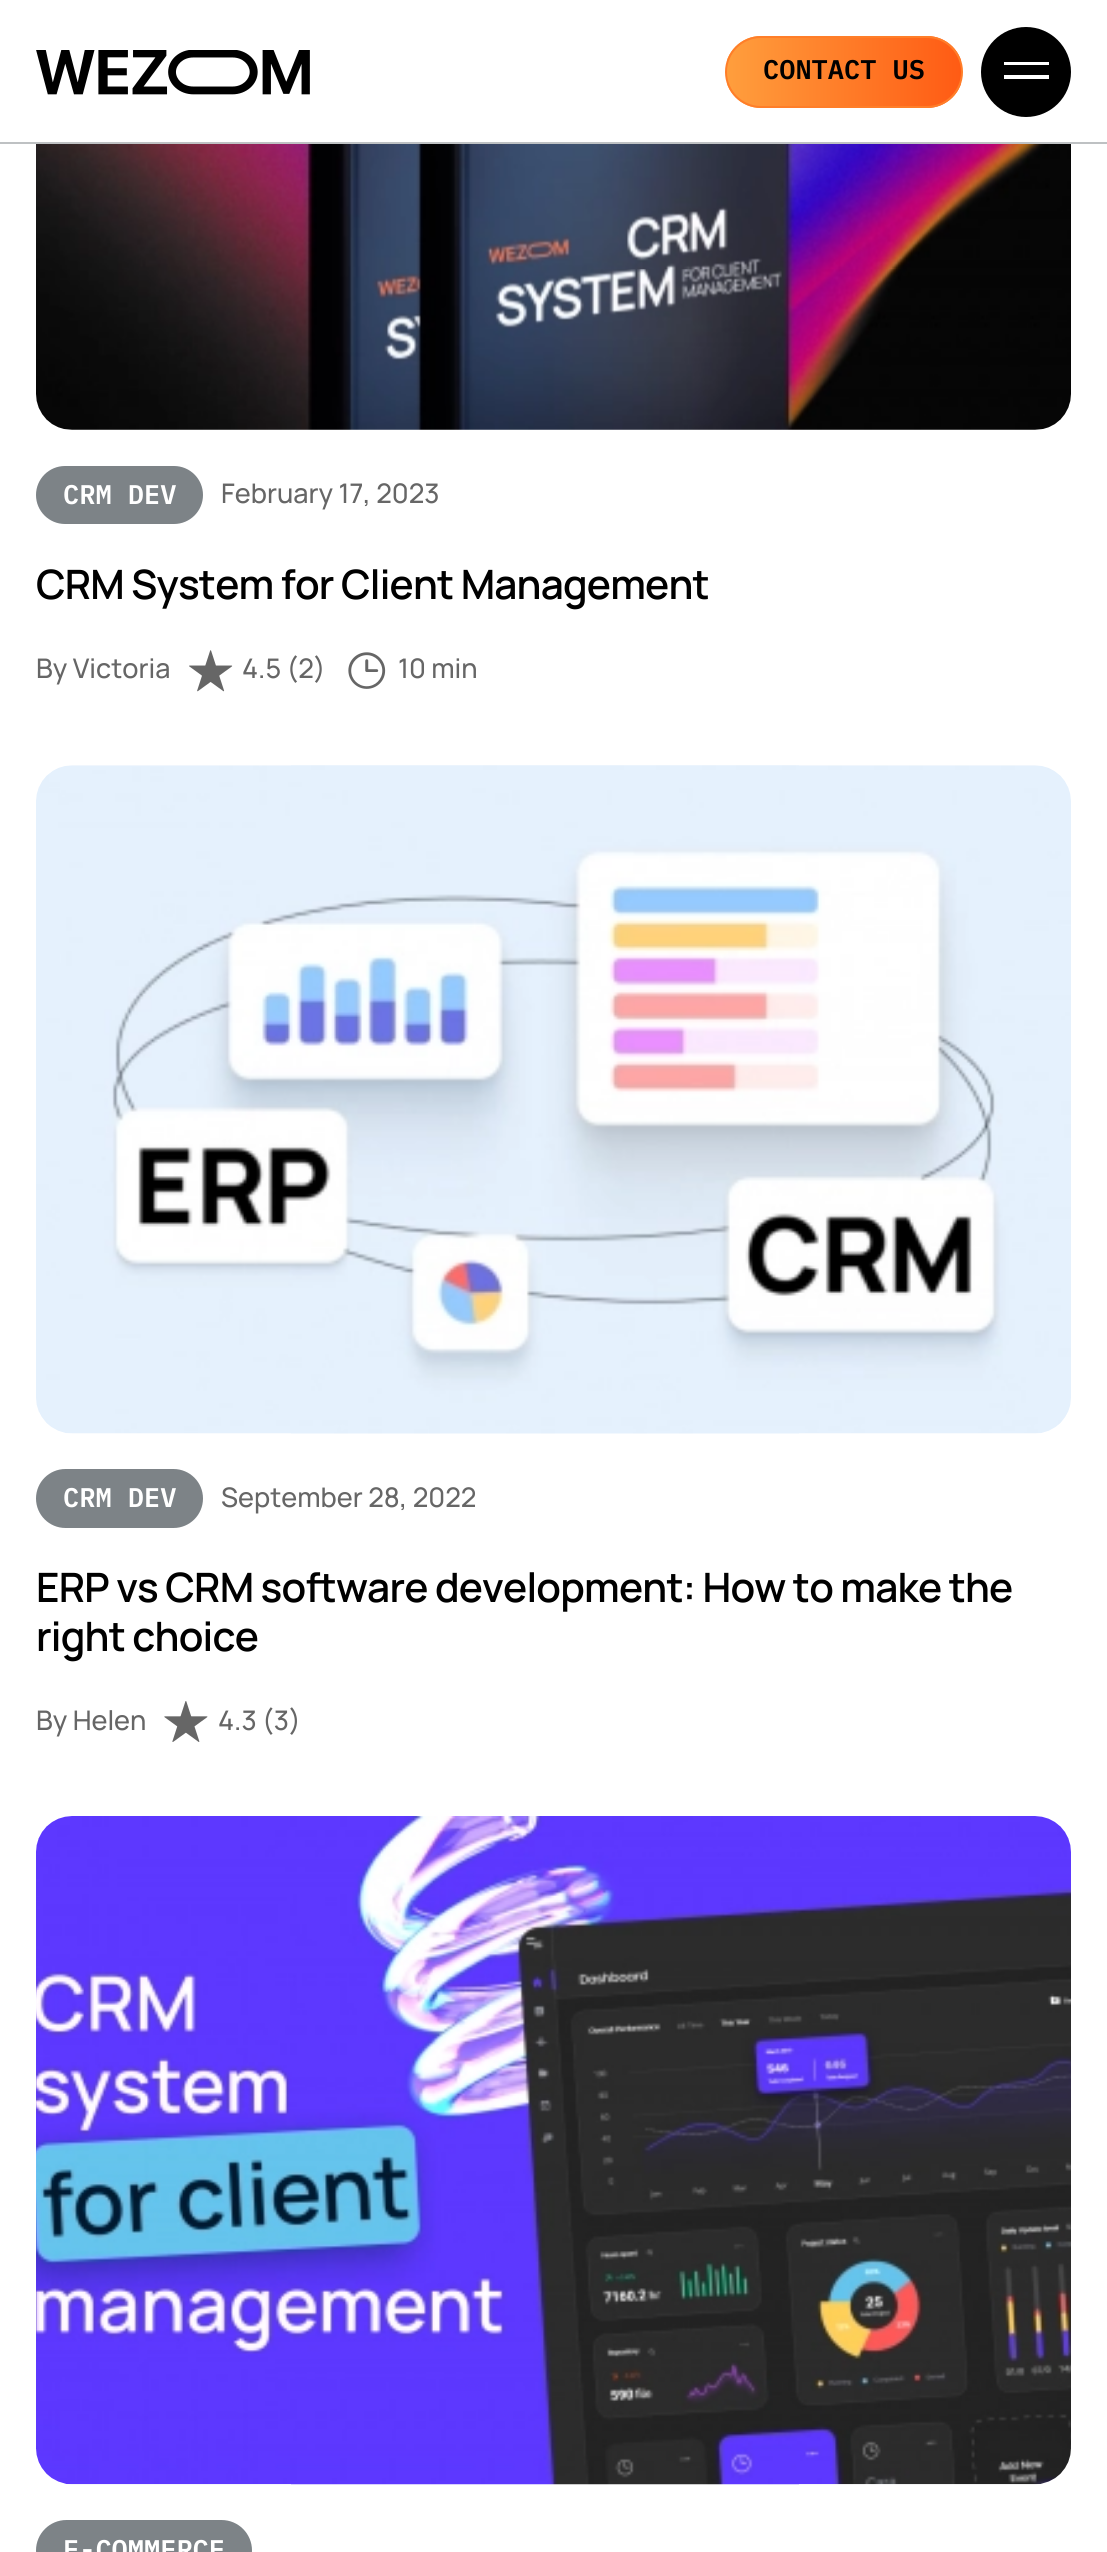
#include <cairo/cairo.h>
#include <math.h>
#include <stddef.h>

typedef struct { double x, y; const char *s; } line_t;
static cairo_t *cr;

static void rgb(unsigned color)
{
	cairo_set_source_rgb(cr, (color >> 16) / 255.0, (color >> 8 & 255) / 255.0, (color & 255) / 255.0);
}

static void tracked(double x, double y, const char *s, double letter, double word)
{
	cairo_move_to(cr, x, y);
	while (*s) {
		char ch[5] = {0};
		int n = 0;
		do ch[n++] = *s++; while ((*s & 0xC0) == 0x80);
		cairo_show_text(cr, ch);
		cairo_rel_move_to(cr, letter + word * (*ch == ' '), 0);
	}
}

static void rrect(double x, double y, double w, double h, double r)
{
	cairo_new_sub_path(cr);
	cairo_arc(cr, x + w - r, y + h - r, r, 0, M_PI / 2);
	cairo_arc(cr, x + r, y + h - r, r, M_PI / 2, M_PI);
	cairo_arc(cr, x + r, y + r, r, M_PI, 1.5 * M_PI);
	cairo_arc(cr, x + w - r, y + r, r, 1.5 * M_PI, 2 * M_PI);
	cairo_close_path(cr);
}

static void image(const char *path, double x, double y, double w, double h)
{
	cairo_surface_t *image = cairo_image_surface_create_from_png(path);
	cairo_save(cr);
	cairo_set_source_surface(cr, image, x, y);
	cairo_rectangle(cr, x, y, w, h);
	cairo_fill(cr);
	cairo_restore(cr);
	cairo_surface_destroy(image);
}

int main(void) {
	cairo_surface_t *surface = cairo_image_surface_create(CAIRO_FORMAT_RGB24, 1107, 2552);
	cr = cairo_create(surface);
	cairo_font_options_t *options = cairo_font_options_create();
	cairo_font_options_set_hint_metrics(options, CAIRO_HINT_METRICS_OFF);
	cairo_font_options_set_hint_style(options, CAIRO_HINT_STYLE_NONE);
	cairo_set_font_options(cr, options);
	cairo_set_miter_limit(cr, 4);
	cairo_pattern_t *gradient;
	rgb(0xffffff);
	cairo_paint(cr);
	rgb(0xbec1c3);
	cairo_rectangle(cr, 0, 142, 1107, 2);
	cairo_fill(cr);
	image("img/1.png", 36, 50, 274, 45);
	cairo_save(cr);
	rrect(725, 36, 238, 72, 36);
	cairo_clip(cr);
	gradient = cairo_pattern_create_linear(961, 72, 727, 72);
	cairo_pattern_add_color_stop_rgba(gradient, 0, 1, 0.357, 0.078, 1);
	cairo_pattern_add_color_stop_rgba(gradient, 1, 1, 0.62, 0.239, 1);
	cairo_set_source(cr, gradient);
	cairo_pattern_destroy(gradient);
	cairo_rectangle(cr, 727, 36, 234, 72);
	cairo_fill(cr);
	cairo_restore(cr);
	rrect(726, 37, 236, 70, 35);
	rgb(0xff7e29);
	cairo_stroke(cr);
	rgb(0x000000);
	cairo_arc(cr, 1026, 72, 45, 0, 2 * M_PI);
	cairo_fill(cr);
	rgb(0xffffff);
	cairo_rectangle(cr, 1004, 62, 45, 3);
	cairo_fill(cr);
	cairo_rectangle(cr, 1004, 75, 45, 4);
	cairo_fill(cr);
	image("img/2.png", 36, 144, 1035, 286);
	rgb(0x7d8387);
	rrect(36, 466, 167, 58, 29);
	cairo_fill(cr);
	image("img/3.png", 189, 650, 44, 42);
	image("img/4.png", 348, 652, 38, 37);
	image("img/5.png", 36, 765, 1035, 669);
	rrect(36, 1469, 167, 59, 29.5);
	cairo_fill(cr);
	image("img/6.png", 164, 1701, 44, 41);
	image("img/7.png", 36, 1816, 1035, 669);
	rrect(36, 2520, 216, 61, 30.5);
	cairo_fill(cr);
	cairo_select_font_face(cr, "IBM Plex Mono SemiBold", CAIRO_FONT_SLANT_NORMAL, CAIRO_FONT_WEIGHT_NORMAL);
	cairo_set_font_size(cr, 27);
	rgb(0x000000);
	cairo_move_to(cr, 763, 79);
	cairo_show_text(cr, "CONTACT US");
	rgb(0xffffff);
	cairo_move_to(cr, 63, 504);
	cairo_show_text(cr, "CRM DEV");
	cairo_select_font_face(cr, "Manrope Medium", CAIRO_FONT_SLANT_NORMAL, CAIRO_FONT_WEIGHT_NORMAL);
	rgb(0x666666);
	cairo_move_to(cr, 221, 503);
	cairo_show_text(cr, "February 17, 2023");
	cairo_select_font_face(cr, "Manrope SemiBold", CAIRO_FONT_SLANT_NORMAL, CAIRO_FONT_WEIGHT_NORMAL);
	cairo_set_font_size(cr, 40.5);
	rgb(0x000000);
	tracked(36, 599, "CRM System for Client Management", -0.8, 0);
	cairo_select_font_face(cr, "Manrope Medium", CAIRO_FONT_SLANT_NORMAL, CAIRO_FONT_WEIGHT_NORMAL);
	cairo_set_font_size(cr, 27);
	rgb(0x666666);
	{
		static const line_t items[] = {
			{36, 678, "By Victoria"},
			{242, 678, "4.5 (2)"},
			{398, 678, "10 min"},
		};
		for (size_t i = 0; i < sizeof items / sizeof *items; i++) {
			cairo_move_to(cr, items[i].x, items[i].y);
			cairo_show_text(cr, items[i].s);
		}
	}
	cairo_select_font_face(cr, "IBM Plex Mono SemiBold", CAIRO_FONT_SLANT_NORMAL, CAIRO_FONT_WEIGHT_NORMAL);
	rgb(0xffffff);
	cairo_move_to(cr, 63, 1507);
	cairo_show_text(cr, "CRM DEV");
	cairo_select_font_face(cr, "Manrope Medium", CAIRO_FONT_SLANT_NORMAL, CAIRO_FONT_WEIGHT_NORMAL);
	rgb(0x666666);
	cairo_move_to(cr, 221, 1507);
	cairo_show_text(cr, "September 28, 2022");
	cairo_select_font_face(cr, "Manrope SemiBold", CAIRO_FONT_SLANT_NORMAL, CAIRO_FONT_WEIGHT_NORMAL);
	cairo_set_font_size(cr, 40.5);
	rgb(0x000000);
	tracked(36, 1602, "ERP vs CRM software development: How to make the", -0.8, 0);
	tracked(36, 1651, "right choice", -0.8, 0);
	cairo_select_font_face(cr, "Manrope Medium", CAIRO_FONT_SLANT_NORMAL, CAIRO_FONT_WEIGHT_NORMAL);
	cairo_set_font_size(cr, 27);
	rgb(0x666666);
	cairo_move_to(cr, 36, 1730);
	cairo_show_text(cr, "By Helen");
	cairo_move_to(cr, 218, 1730);
	cairo_show_text(cr, "4.3 (3)");
	cairo_select_font_face(cr, "IBM Plex Mono SemiBold", CAIRO_FONT_SLANT_NORMAL, CAIRO_FONT_WEIGHT_NORMAL);
	rgb(0xffffff);
	cairo_move_to(cr, 63, 2559);
	cairo_show_text(cr, "E-COMMERCE");
	cairo_surface_write_to_png(surface, "page.png");
	cairo_font_options_destroy(options);
	cairo_destroy(cr);
	cairo_surface_destroy(surface);
	return 0;
}
